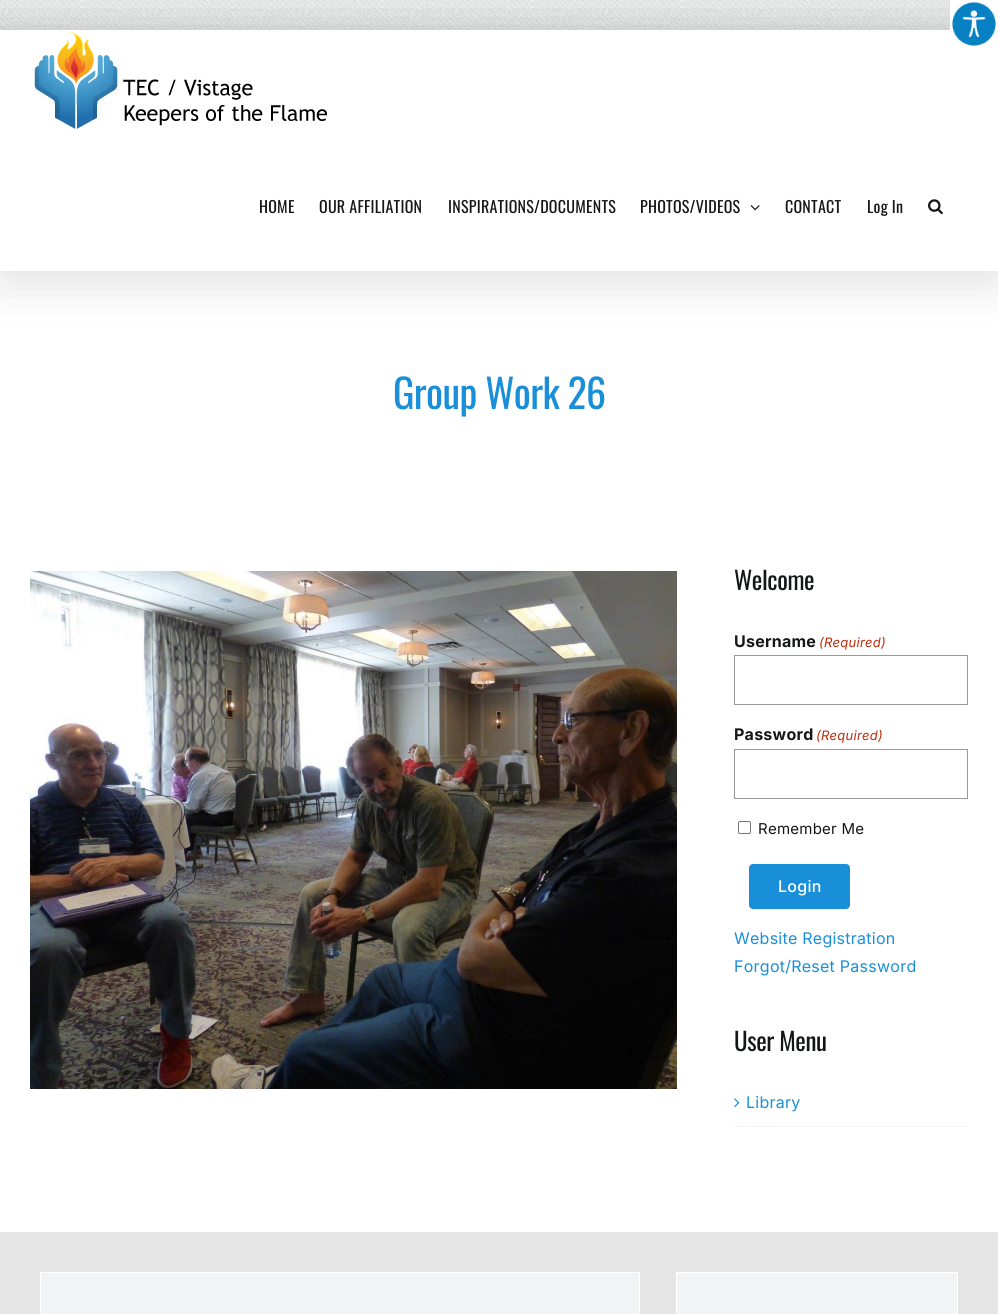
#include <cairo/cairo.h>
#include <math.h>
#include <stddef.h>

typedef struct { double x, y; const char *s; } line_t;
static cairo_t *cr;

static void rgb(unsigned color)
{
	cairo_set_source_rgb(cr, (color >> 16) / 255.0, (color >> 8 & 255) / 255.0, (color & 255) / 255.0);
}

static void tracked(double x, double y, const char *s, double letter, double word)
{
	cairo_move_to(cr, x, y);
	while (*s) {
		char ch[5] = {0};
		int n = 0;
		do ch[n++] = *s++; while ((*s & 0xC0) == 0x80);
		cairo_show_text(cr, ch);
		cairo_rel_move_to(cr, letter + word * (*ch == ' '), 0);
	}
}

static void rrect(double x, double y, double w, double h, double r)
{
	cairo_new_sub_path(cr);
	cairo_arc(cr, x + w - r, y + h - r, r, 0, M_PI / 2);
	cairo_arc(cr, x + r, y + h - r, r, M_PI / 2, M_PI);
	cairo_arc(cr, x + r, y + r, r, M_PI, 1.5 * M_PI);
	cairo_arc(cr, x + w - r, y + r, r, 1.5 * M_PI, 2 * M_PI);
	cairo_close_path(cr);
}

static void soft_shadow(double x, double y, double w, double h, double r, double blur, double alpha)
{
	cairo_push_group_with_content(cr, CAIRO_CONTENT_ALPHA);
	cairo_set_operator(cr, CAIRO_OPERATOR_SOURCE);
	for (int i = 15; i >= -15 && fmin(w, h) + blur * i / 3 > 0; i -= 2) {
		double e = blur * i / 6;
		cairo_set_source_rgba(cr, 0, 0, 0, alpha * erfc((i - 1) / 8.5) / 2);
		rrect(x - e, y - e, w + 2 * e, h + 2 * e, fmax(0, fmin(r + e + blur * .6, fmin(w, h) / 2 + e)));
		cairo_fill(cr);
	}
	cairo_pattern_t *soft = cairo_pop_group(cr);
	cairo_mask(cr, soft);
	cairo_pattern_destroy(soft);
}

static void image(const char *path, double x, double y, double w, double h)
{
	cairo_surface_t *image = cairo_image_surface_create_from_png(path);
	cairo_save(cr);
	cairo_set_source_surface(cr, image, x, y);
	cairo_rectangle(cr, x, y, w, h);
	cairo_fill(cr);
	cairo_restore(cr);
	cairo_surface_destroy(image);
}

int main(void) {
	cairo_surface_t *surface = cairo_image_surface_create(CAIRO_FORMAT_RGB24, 998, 1314);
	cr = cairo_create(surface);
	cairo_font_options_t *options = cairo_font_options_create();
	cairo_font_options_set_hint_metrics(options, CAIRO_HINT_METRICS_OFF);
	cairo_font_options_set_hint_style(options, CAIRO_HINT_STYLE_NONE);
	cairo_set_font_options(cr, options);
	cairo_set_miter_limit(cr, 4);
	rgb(0xffffff);
	cairo_paint(cr);
	rgb(0x000000);
	soft_shadow(2, 42, 994, 237, 0, 25, 0.14);
	image("img/1.png", 0, 0, 950, 30);
	rgb(0xffffff);
	cairo_rectangle(cr, 0, 30, 998, 241);
	cairo_fill(cr);
	image("img/3.png", 34, 31, 293, 98);
	image("img/4.png", 750, 205, 10, 6);
	image("img/5.png", 928, 199, 15, 16);
	image("img/6.png", 30, 571, 647, 518);
	cairo_rectangle(cr, 734.5, 655.5, 233, 49);
	rgb(0x999999);
	cairo_set_line_width(cr, 1);
	cairo_stroke(cr);
	cairo_rectangle(cr, 734.5, 749.5, 233, 49);
	cairo_stroke(cr);
	rrect(738.5, 821.5, 12, 12, 1.5);
	rgb(0x767676);
	cairo_stroke(cr);
	rgb(0x198fd9);
	rrect(749, 864, 101, 45, 4);
	cairo_fill(cr);
	rgb(0xf2f3f5);
	cairo_rectangle(cr, 734, 1126, 234, 1);
	cairo_fill(cr);
	image("img/7.png", 734, 1098, 6, 10);
	rgb(0xe5e5e5);
	cairo_rectangle(cr, 0, 1232, 998, 82);
	cairo_fill(cr);
	rgb(0xf2f3f5);
	cairo_rectangle(cr, 40.5, 1272.5, 599, 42);
	cairo_fill_preserve(cr);
	rgb(0xffffff);
	cairo_stroke(cr);
	rgb(0xf2f3f5);
	cairo_rectangle(cr, 676.5, 1272.5, 281, 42);
	cairo_fill_preserve(cr);
	rgb(0xffffff);
	cairo_stroke(cr);
	cairo_save(cr);
	cairo_rectangle(cr, 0, 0, 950, 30);
	cairo_clip(cr);
	rgb(0x000000);
	soft_shadow(-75, 29, 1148, 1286, 0, 25, 0.22);
	cairo_restore(cr);
	cairo_rectangle(cr, 950, 0, 48, 30);
	cairo_fill(cr);
	image("img/2.png", 952, 2, 44, 44);
	cairo_select_font_face(cr, "Oswald", CAIRO_FONT_SLANT_NORMAL, CAIRO_FONT_WEIGHT_NORMAL);
	cairo_set_font_size(cr, 16);
	rgb(0x141617);
	{
		static const line_t items[] = {
			{259, 213, "HOME"},
			{319, 213, "OUR AFFILIATION"},
			{448, 213, "INSPIRATIONS/DOCUMENTS"},
			{640, 213, "PHOTOS/VIDEOS"},
			{785, 213, "CONTACT"},
			{867, 213, "Log In"},
		};
		for (size_t i = 0; i < sizeof items / sizeof *items; i++) {
			tracked(items[i].x, items[i].y, items[i].s, 0.25, 0);
		}
	}
	cairo_set_font_size(cr, 40);
	rgb(0x198fd9);
	tracked(393, 409, "Group Work 26", -0.6, 0);
	cairo_set_font_size(cr, 25);
	rgb(0x141617);
	tracked(734, 590, "Welcome", -0.4, 0);
	cairo_select_font_face(cr, "Inter", CAIRO_FONT_SLANT_NORMAL, CAIRO_FONT_WEIGHT_BOLD);
	cairo_set_font_size(cr, 16);
	tracked(734, 647, "Username", 0.25, 0);
	cairo_select_font_face(cr, "Inter", CAIRO_FONT_SLANT_ITALIC, CAIRO_FONT_WEIGHT_NORMAL);
	cairo_set_font_size(cr, 13);
	rgb(0xc02b0a);
	tracked(819, 647, "(Required)", 0.25, 0);
	cairo_select_font_face(cr, "Inter", CAIRO_FONT_SLANT_NORMAL, CAIRO_FONT_WEIGHT_BOLD);
	cairo_set_font_size(cr, 16);
	rgb(0x141617);
	tracked(734, 740, "Password", 0.25, 0);
	cairo_select_font_face(cr, "Inter", CAIRO_FONT_SLANT_ITALIC, CAIRO_FONT_WEIGHT_NORMAL);
	cairo_set_font_size(cr, 13);
	rgb(0xc02b0a);
	tracked(816, 740, "(Required)", 0.25, 0);
	cairo_select_font_face(cr, "Inter", CAIRO_FONT_SLANT_NORMAL, CAIRO_FONT_WEIGHT_NORMAL);
	cairo_set_font_size(cr, 15);
	rgb(0x141617);
	tracked(758, 834, "Remember Me", 0.25, 0);
	cairo_select_font_face(cr, "Inter Medium", CAIRO_FONT_SLANT_NORMAL, CAIRO_FONT_WEIGHT_NORMAL);
	cairo_set_font_size(cr, 16);
	rgb(0xffffff);
	tracked(778, 892, "Login", 0.25, 0);
	cairo_select_font_face(cr, "Inter", CAIRO_FONT_SLANT_NORMAL, CAIRO_FONT_WEIGHT_NORMAL);
	rgb(0x198fd9);
	tracked(734, 944, "Website Registration", 0.25, 0);
	tracked(734, 972, "Forgot/Reset Password", 0.25, 0);
	cairo_select_font_face(cr, "Oswald", CAIRO_FONT_SLANT_NORMAL, CAIRO_FONT_WEIGHT_NORMAL);
	cairo_set_font_size(cr, 25);
	rgb(0x141617);
	tracked(734, 1051, "User Menu", -0.4, 0);
	cairo_select_font_face(cr, "Inter", CAIRO_FONT_SLANT_NORMAL, CAIRO_FONT_WEIGHT_NORMAL);
	cairo_set_font_size(cr, 16);
	rgb(0x198fd9);
	tracked(746, 1108, "Library", 0.25, 0);
	cairo_surface_write_to_png(surface, "page.png");
	cairo_font_options_destroy(options);
	cairo_destroy(cr);
	cairo_surface_destroy(surface);
	return 0;
}
